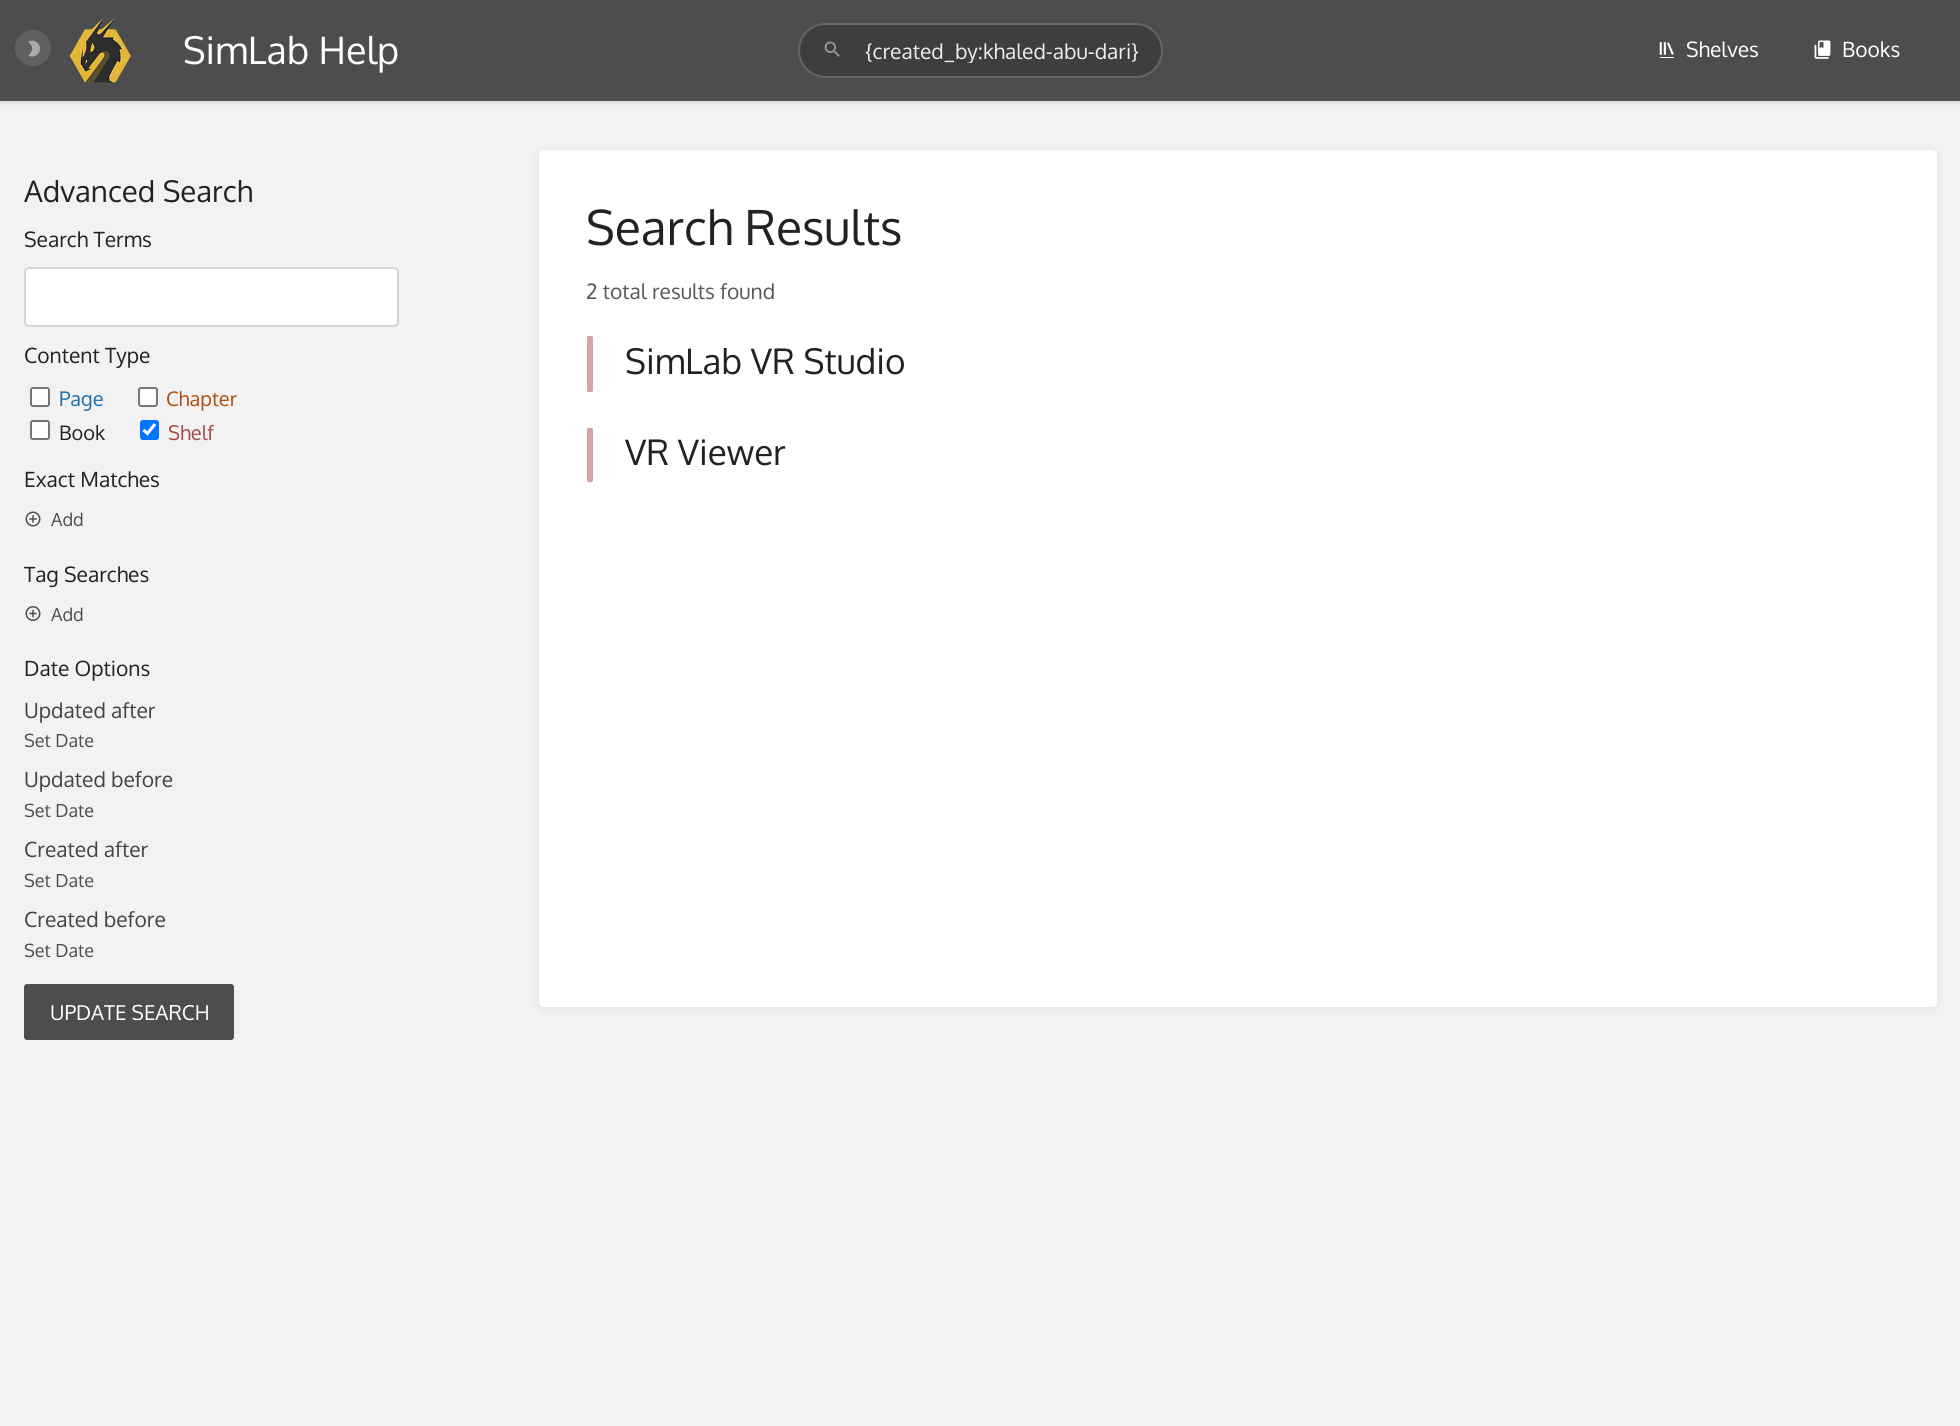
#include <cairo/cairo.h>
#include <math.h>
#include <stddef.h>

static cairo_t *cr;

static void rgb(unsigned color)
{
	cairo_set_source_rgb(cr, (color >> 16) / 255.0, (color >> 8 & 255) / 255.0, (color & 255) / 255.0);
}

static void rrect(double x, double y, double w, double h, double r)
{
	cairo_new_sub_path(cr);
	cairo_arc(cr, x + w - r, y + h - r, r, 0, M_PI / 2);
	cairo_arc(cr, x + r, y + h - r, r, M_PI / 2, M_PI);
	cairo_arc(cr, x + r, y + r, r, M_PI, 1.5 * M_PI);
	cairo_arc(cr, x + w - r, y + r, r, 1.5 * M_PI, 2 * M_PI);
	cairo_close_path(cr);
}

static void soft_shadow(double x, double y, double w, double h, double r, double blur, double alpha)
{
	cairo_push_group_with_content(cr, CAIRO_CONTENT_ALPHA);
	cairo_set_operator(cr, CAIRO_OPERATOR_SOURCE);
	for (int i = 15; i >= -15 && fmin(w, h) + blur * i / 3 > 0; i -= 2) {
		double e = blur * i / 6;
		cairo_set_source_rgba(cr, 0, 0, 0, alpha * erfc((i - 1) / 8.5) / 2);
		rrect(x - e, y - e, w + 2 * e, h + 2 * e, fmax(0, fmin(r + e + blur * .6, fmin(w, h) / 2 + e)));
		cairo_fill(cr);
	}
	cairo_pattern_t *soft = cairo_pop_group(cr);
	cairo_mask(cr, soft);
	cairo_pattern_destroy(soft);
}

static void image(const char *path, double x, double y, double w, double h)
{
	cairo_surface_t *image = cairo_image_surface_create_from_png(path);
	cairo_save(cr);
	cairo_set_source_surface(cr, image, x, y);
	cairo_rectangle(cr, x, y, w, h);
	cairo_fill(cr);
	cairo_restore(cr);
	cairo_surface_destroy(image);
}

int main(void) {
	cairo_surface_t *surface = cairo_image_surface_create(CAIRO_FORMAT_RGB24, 1960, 1426);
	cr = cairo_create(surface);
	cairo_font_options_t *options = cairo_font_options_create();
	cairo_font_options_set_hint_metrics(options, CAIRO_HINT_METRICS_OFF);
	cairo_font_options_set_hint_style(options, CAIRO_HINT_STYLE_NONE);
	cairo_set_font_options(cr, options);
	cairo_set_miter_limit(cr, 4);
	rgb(0xf2f2f2);
	cairo_paint(cr);
	rgb(0x000000);
	soft_shadow(2, 3, 1957, 99, 0, 4.5, 0.1);
	rgb(0x4d4d4d);
	cairo_rectangle(cr, 0, 0, 1960, 101);
	cairo_fill(cr);
	rgb(0xdddddd);
	cairo_rectangle(cr, 0, 101, 1960, 2);
	cairo_fill(cr);
	image("img/1.png", 28, 40, 12, 17);
	cairo_set_source_rgba(cr, 0.671, 0.671, 0.671, 0.2);
	cairo_arc(cr, 33, 48, 18, 0, 2 * M_PI);
	cairo_fill(cr);
	image("img/2.png", 69, 18, 62, 65);
	rgb(0x3e3e3e);
	rrect(798, 23, 365, 55, 27.5);
	cairo_fill(cr);
	rrect(799, 24, 363, 53, 26.5);
	cairo_set_source_rgba(cr, 1, 1, 1, 0.2);
	cairo_stroke(cr);
	image("img/3.png", 824, 41, 16, 16);
	image("img/4.png", 1659, 42, 15, 16);
	image("img/5.png", 1814, 40, 17, 19);
	rgb(0xffffff);
	rrect(25, 268, 373, 58, 4);
	cairo_fill_preserve(cr);
	rgb(0xd4d4d4);
	cairo_stroke(cr);
	rgb(0xffffff);
	rrect(31, 388, 18, 18, 2);
	cairo_fill_preserve(cr);
	rgb(0x767676);
	cairo_stroke(cr);
	rgb(0xffffff);
	rrect(139, 388, 18, 18, 2);
	cairo_fill_preserve(cr);
	rgb(0x767676);
	cairo_stroke(cr);
	rgb(0xffffff);
	rrect(31, 421, 18, 18, 2);
	cairo_fill_preserve(cr);
	rgb(0x767676);
	cairo_stroke(cr);
	rgb(0x0075ff);
	rrect(140, 420, 19, 20, 3);
	cairo_fill(cr);
	cairo_new_path(cr);
	cairo_move_to(cr, 143.5, 430);
	cairo_line_to(cr, 147.5, 433.5);
	cairo_line_to(cr, 155, 424);
	rgb(0xffffff);
	cairo_set_line_width(cr, 3.1);
	cairo_stroke(cr);
	image("img/6.png", 25, 511, 16, 16);
	image("img/7.png", 25, 606, 16, 15);
	rgb(0x4d4d4d);
	rrect(25, 985, 208, 54, 2);
	cairo_fill_preserve(cr);
	cairo_set_line_width(cr, 2);
	cairo_stroke(cr);
	rgb(0x000000);
	soft_shadow(540, 153, 1395, 854, 3, 4.5, 0.1);
	rgb(0xffffff);
	rrect(539, 150, 1398, 857, 5);
	cairo_fill(cr);
	rgb(0xd4a3a3);
	rrect(587, 336, 6, 56, 1.5);
	cairo_fill(cr);
	rrect(587, 428, 6, 54, 1.5);
	cairo_fill(cr);
	cairo_select_font_face(cr, "Oxygen", CAIRO_FONT_SLANT_NORMAL, CAIRO_FONT_WEIGHT_NORMAL);
	cairo_set_font_size(cr, 37.75);
	rgb(0xffffff);
	cairo_move_to(cr, 183, 64);
	cairo_show_text(cr, "SimLab Help");
	cairo_save(cr);
	cairo_rectangle(cr, 860, 38, 288, 25);
	cairo_clip(cr);
	cairo_set_font_size(cr, 21);
	rgb(0xeeeeee);
	cairo_move_to(cr, 865, 59);
	cairo_show_text(cr, "{created_by:khaled-abu-dari}");
	cairo_restore(cr);
	cairo_set_font_size(cr, 21);
	cairo_move_to(cr, 1686, 57);
	cairo_show_text(cr, "Shelves");
	cairo_move_to(cr, 1842, 57);
	cairo_show_text(cr, "Books");
	cairo_set_font_size(cr, 29.5);
	rgb(0x222222);
	cairo_move_to(cr, 24, 202);
	cairo_show_text(cr, "Advanced Search");
	cairo_set_font_size(cr, 21);
	cairo_move_to(cr, 24, 247);
	cairo_show_text(cr, "Search Terms");
	cairo_move_to(cr, 24, 363);
	cairo_show_text(cr, "Content Type");
	cairo_set_font_size(cr, 20);
	rgb(0x206ea7);
	cairo_move_to(cr, 59, 406);
	cairo_show_text(cr, "Page");
	rgb(0xaf4d0d);
	cairo_move_to(cr, 166, 406);
	cairo_show_text(cr, "Chapter");
	rgb(0x222222);
	cairo_move_to(cr, 59, 440);
	cairo_show_text(cr, "Book");
	rgb(0xa94747);
	cairo_move_to(cr, 168, 440);
	cairo_show_text(cr, "Shelf");
	cairo_set_font_size(cr, 21);
	rgb(0x222222);
	cairo_move_to(cr, 24, 487);
	cairo_show_text(cr, "Exact Matches");
	cairo_set_font_size(cr, 18);
	rgb(0x4d4d4d);
	cairo_move_to(cr, 51, 526);
	cairo_show_text(cr, "Add");
	cairo_set_font_size(cr, 21);
	rgb(0x222222);
	cairo_move_to(cr, 24, 582);
	cairo_show_text(cr, "Tag Searches");
	cairo_set_font_size(cr, 18);
	rgb(0x4d4d4d);
	cairo_move_to(cr, 51, 621);
	cairo_show_text(cr, "Add");
	cairo_set_font_size(cr, 21);
	rgb(0x222222);
	cairo_move_to(cr, 24, 676);
	cairo_show_text(cr, "Date Options");
	rgb(0x444444);
	cairo_move_to(cr, 24, 718);
	cairo_show_text(cr, "Updated after");
	cairo_set_font_size(cr, 18);
	rgb(0x4d4d4d);
	cairo_move_to(cr, 24, 747);
	cairo_show_text(cr, "Set Date");
	cairo_set_font_size(cr, 21);
	rgb(0x444444);
	cairo_move_to(cr, 24, 787);
	cairo_show_text(cr, "Updated before");
	cairo_set_font_size(cr, 18);
	rgb(0x4d4d4d);
	cairo_move_to(cr, 24, 817);
	cairo_show_text(cr, "Set Date");
	cairo_set_font_size(cr, 21);
	rgb(0x444444);
	cairo_move_to(cr, 24, 857);
	cairo_show_text(cr, "Created after");
	cairo_set_font_size(cr, 18);
	rgb(0x4d4d4d);
	cairo_move_to(cr, 24, 887);
	cairo_show_text(cr, "Set Date");
	cairo_set_font_size(cr, 21);
	rgb(0x444444);
	cairo_move_to(cr, 24, 927);
	cairo_show_text(cr, "Created before");
	cairo_set_font_size(cr, 18);
	rgb(0x4d4d4d);
	cairo_move_to(cr, 24, 957);
	cairo_show_text(cr, "Set Date");
	cairo_set_font_size(cr, 20.5);
	rgb(0xffffff);
	cairo_move_to(cr, 50, 1020);
	cairo_show_text(cr, "UPDATE SEARCH");
	cairo_set_font_size(cr, 48);
	rgb(0x222222);
	cairo_move_to(cr, 586, 245);
	cairo_show_text(cr, "Search Results");
	cairo_set_font_size(cr, 21);
	rgb(0x575757);
	cairo_move_to(cr, 586, 299);
	cairo_show_text(cr, "2 total results found");
	cairo_set_font_size(cr, 35);
	rgb(0x222222);
	cairo_move_to(cr, 625, 374);
	cairo_show_text(cr, "SimLab VR Studio");
	cairo_move_to(cr, 625, 465);
	cairo_show_text(cr, "VR Viewer");
	cairo_surface_write_to_png(surface, "page.png");
	cairo_font_options_destroy(options);
	cairo_destroy(cr);
	cairo_surface_destroy(surface);
	return 0;
}
